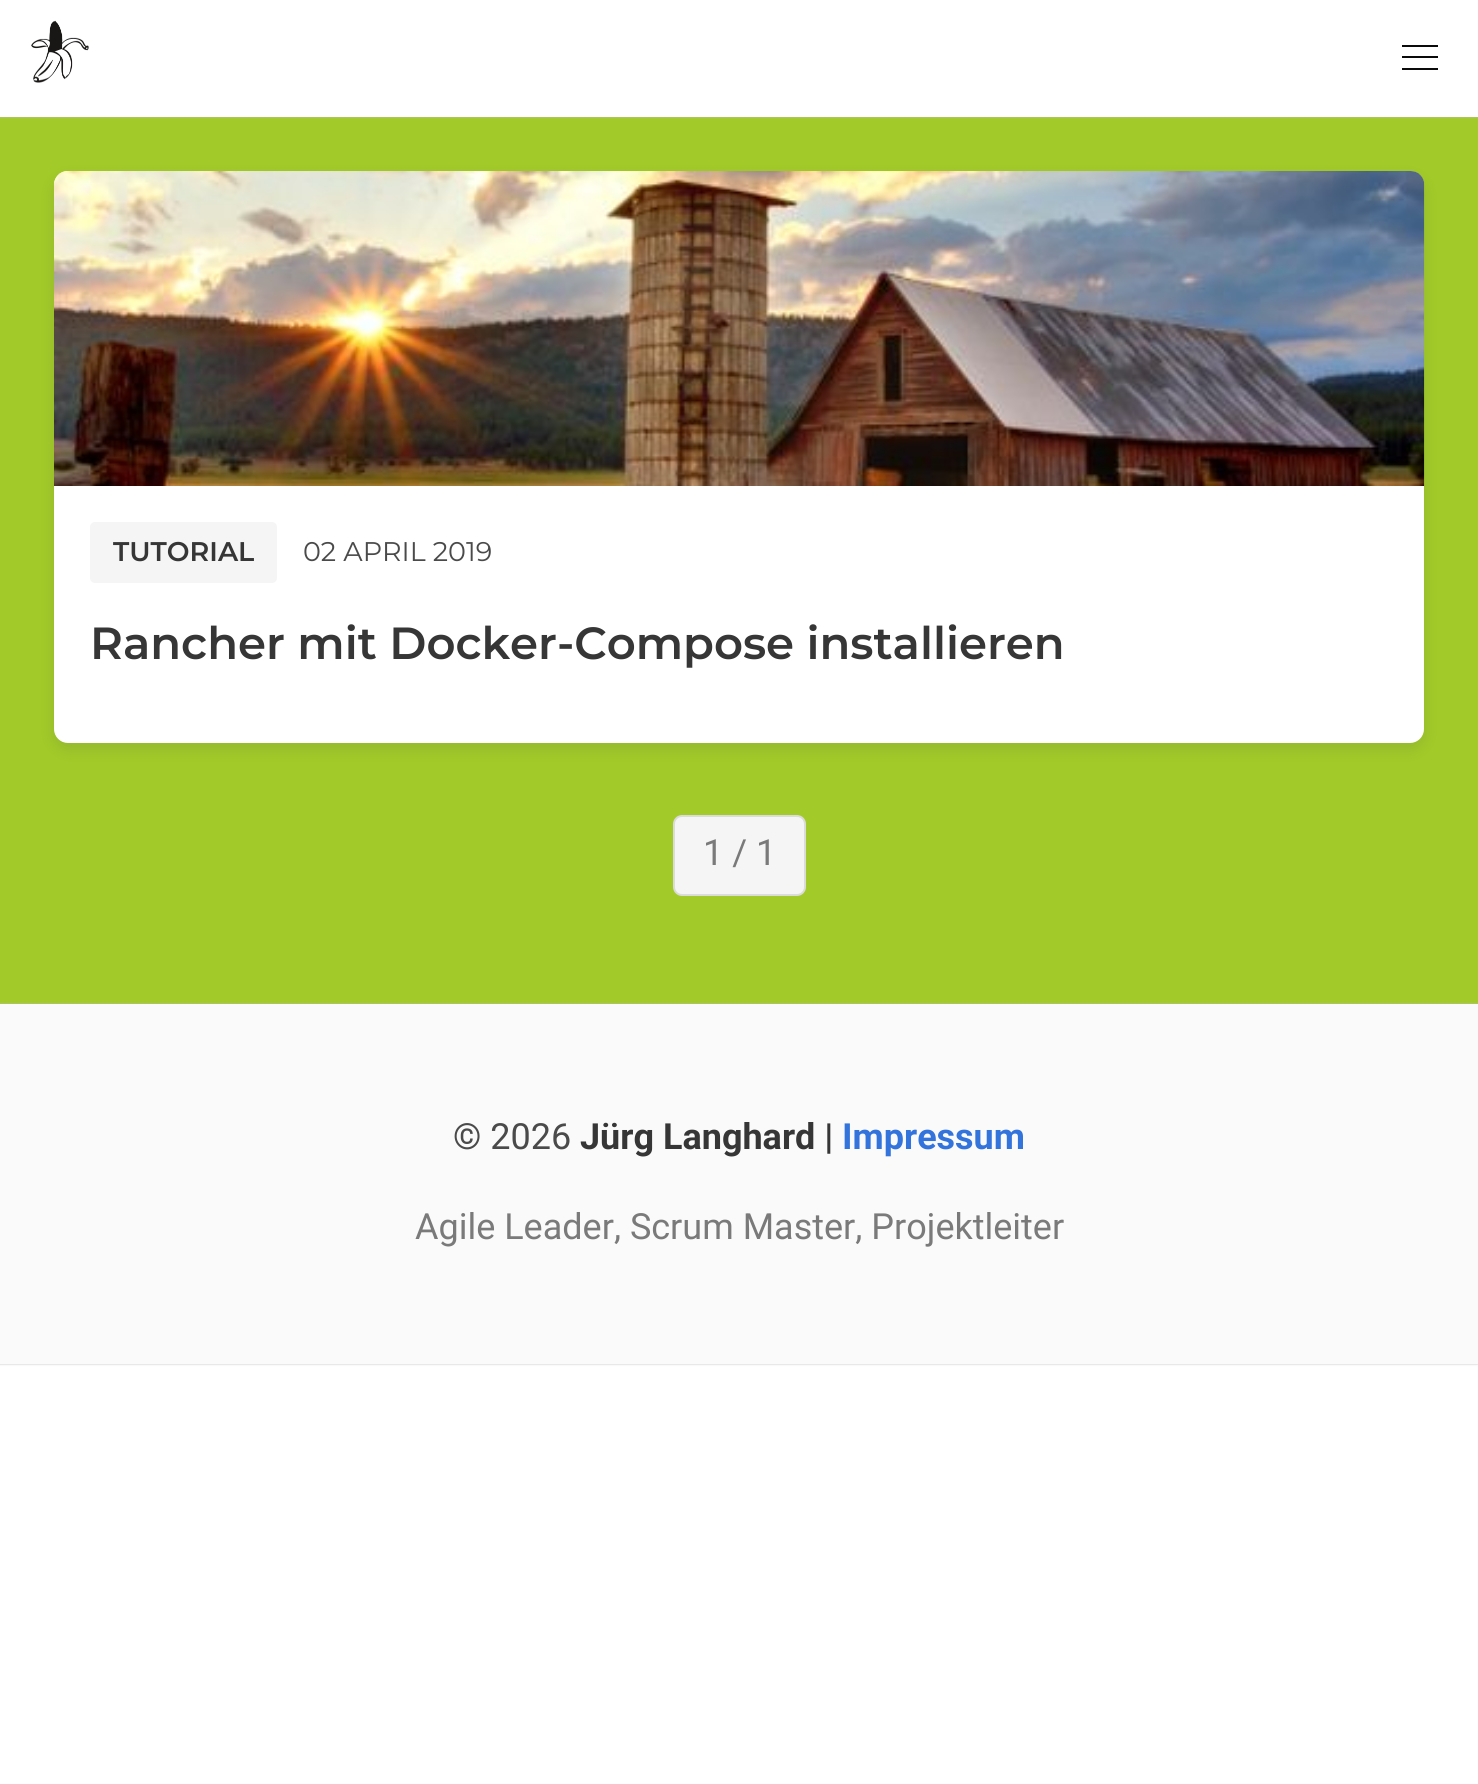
#include <cairo/cairo.h>
#include <math.h>
#include <stddef.h>

typedef struct { double x, y, w, h; unsigned color; } box_t;
static cairo_t *cr;

static void rgb(unsigned color)
{
	cairo_set_source_rgb(cr, (color >> 16) / 255.0, (color >> 8 & 255) / 255.0, (color & 255) / 255.0);
}

static void rrect(double x, double y, double w, double h, double r)
{
	cairo_new_sub_path(cr);
	cairo_arc(cr, x + w - r, y + h - r, r, 0, M_PI / 2);
	cairo_arc(cr, x + r, y + h - r, r, M_PI / 2, M_PI);
	cairo_arc(cr, x + r, y + r, r, M_PI, 1.5 * M_PI);
	cairo_arc(cr, x + w - r, y + r, r, 1.5 * M_PI, 2 * M_PI);
	cairo_close_path(cr);
}

static void soft_shadow(double x, double y, double w, double h, double r, double blur, double alpha)
{
	cairo_push_group_with_content(cr, CAIRO_CONTENT_ALPHA);
	cairo_set_operator(cr, CAIRO_OPERATOR_SOURCE);
	for (int i = 15; i >= -15 && fmin(w, h) + blur * i / 3 > 0; i -= 2) {
		double e = blur * i / 6;
		cairo_set_source_rgba(cr, 0, 0, 0, alpha * erfc((i - 1) / 8.5) / 2);
		rrect(x - e, y - e, w + 2 * e, h + 2 * e, fmax(0, fmin(r + e + blur * .6, fmin(w, h) / 2 + e)));
		cairo_fill(cr);
	}
	cairo_pattern_t *soft = cairo_pop_group(cr);
	cairo_mask(cr, soft);
	cairo_pattern_destroy(soft);
}

static void image(const char *path, double x, double y, double w, double h)
{
	cairo_surface_t *image = cairo_image_surface_create_from_png(path);
	cairo_save(cr);
	cairo_set_source_surface(cr, image, x, y);
	cairo_rectangle(cr, x, y, w, h);
	cairo_fill(cr);
	cairo_restore(cr);
	cairo_surface_destroy(image);
}

int main(void) {
	cairo_surface_t *surface = cairo_image_surface_create(CAIRO_FORMAT_RGB24, 1478, 1784);
	cr = cairo_create(surface);
	cairo_font_options_t *options = cairo_font_options_create();
	cairo_font_options_set_hint_metrics(options, CAIRO_HINT_METRICS_OFF);
	cairo_font_options_set_hint_style(options, CAIRO_HINT_STYLE_NONE);
	cairo_set_font_options(cr, options);
	cairo_set_miter_limit(cr, 4);
	rgb(0xffffff);
	cairo_paint(cr);
	rgb(0xa2ca28);
	cairo_rectangle(cr, 0, 117, 1478, 887);
	cairo_fill(cr);
	cairo_save(cr);
	cairo_rectangle(cr, 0, 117, 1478, 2);
	cairo_clip(cr);
	rgb(0xbbbbbb);
	soft_shadow(0, 0, 1478, 117, 0, 1, 1);
	cairo_restore(cr);
	image("img/1.png", 31, 20, 58, 63);
	{
		static const box_t items[] = {
			{1402, 45, 36, 2, 0x0a0a0a},
			{1402, 56, 36, 2, 0x0a0a0a},
			{1402, 68, 36, 2, 0x0a0a0a},
		};
		for (size_t i = 0; i < sizeof items / sizeof *items; i++) {
			rgb(items[i].color);
			cairo_rectangle(cr, items[i].x, items[i].y, items[i].w, items[i].h);
			cairo_fill(cr);
		}
	}
	rgb(0x0c0c5e);
	soft_shadow(54, 178, 1370, 571, 14, 7, 0.1);
	rgb(0xffffff);
	rrect(54, 171, 1370, 572, 14);
	cairo_fill(cr);
	image("img/2.png", 54, 171, 1371, 315);
	rgb(0xf5f5f5);
	rrect(90, 522, 187, 61, 5);
	cairo_fill(cr);
	rrect(674, 816, 131, 79, 8);
	cairo_fill_preserve(cr);
	rgb(0xdbdbdb);
	cairo_stroke(cr);
	rgb(0xbbbbbb);
	soft_shadow(0, 1004, 1478, 360, 0, 1, 1);
	rgb(0xfafafa);
	cairo_rectangle(cr, 0, 1004, 1478, 360);
	cairo_fill(cr);
	cairo_select_font_face(cr, "Montserrat SemiBold", CAIRO_FONT_SLANT_NORMAL, CAIRO_FONT_WEIGHT_NORMAL);
	cairo_set_font_size(cr, 27);
	rgb(0x363636);
	cairo_move_to(cr, 113, 561);
	cairo_show_text(cr, "TUTORIAL");
	cairo_select_font_face(cr, "Montserrat", CAIRO_FONT_SLANT_NORMAL, CAIRO_FONT_WEIGHT_NORMAL);
	rgb(0x4a4a4a);
	cairo_move_to(cr, 303, 561);
	cairo_show_text(cr, "02 APRIL 2019");
	cairo_select_font_face(cr, "Montserrat SemiBold", CAIRO_FONT_SLANT_NORMAL, CAIRO_FONT_WEIGHT_NORMAL);
	cairo_set_font_size(cr, 45);
	rgb(0x363636);
	cairo_move_to(cr, 90, 659);
	cairo_show_text(cr, "Rancher mit Docker-Compose installieren");
	cairo_select_font_face(cr, "Roboto", CAIRO_FONT_SLANT_NORMAL, CAIRO_FONT_WEIGHT_NORMAL);
	cairo_set_font_size(cr, 36);
	rgb(0x7a7a7a);
	cairo_move_to(cr, 703, 865);
	cairo_show_text(cr, "1 / 1");
	rgb(0x4a4a4a);
	cairo_move_to(cr, 453, 1149);
	cairo_show_text(cr, "© 2026");
	cairo_select_font_face(cr, "Roboto", CAIRO_FONT_SLANT_NORMAL, CAIRO_FONT_WEIGHT_BOLD);
	rgb(0x363636);
	cairo_move_to(cr, 580, 1149);
	cairo_show_text(cr, "Jürg Langhard |");
	rgb(0x3273dc);
	cairo_move_to(cr, 842, 1149);
	cairo_show_text(cr, "Impressum");
	cairo_select_font_face(cr, "Roboto", CAIRO_FONT_SLANT_NORMAL, CAIRO_FONT_WEIGHT_NORMAL);
	rgb(0x7a7a7a);
	cairo_move_to(cr, 415, 1239);
	cairo_show_text(cr, "Agile Leader, Scrum Master, Projektleiter");
	cairo_surface_write_to_png(surface, "page.png");
	cairo_font_options_destroy(options);
	cairo_destroy(cr);
	cairo_surface_destroy(surface);
	return 0;
}
